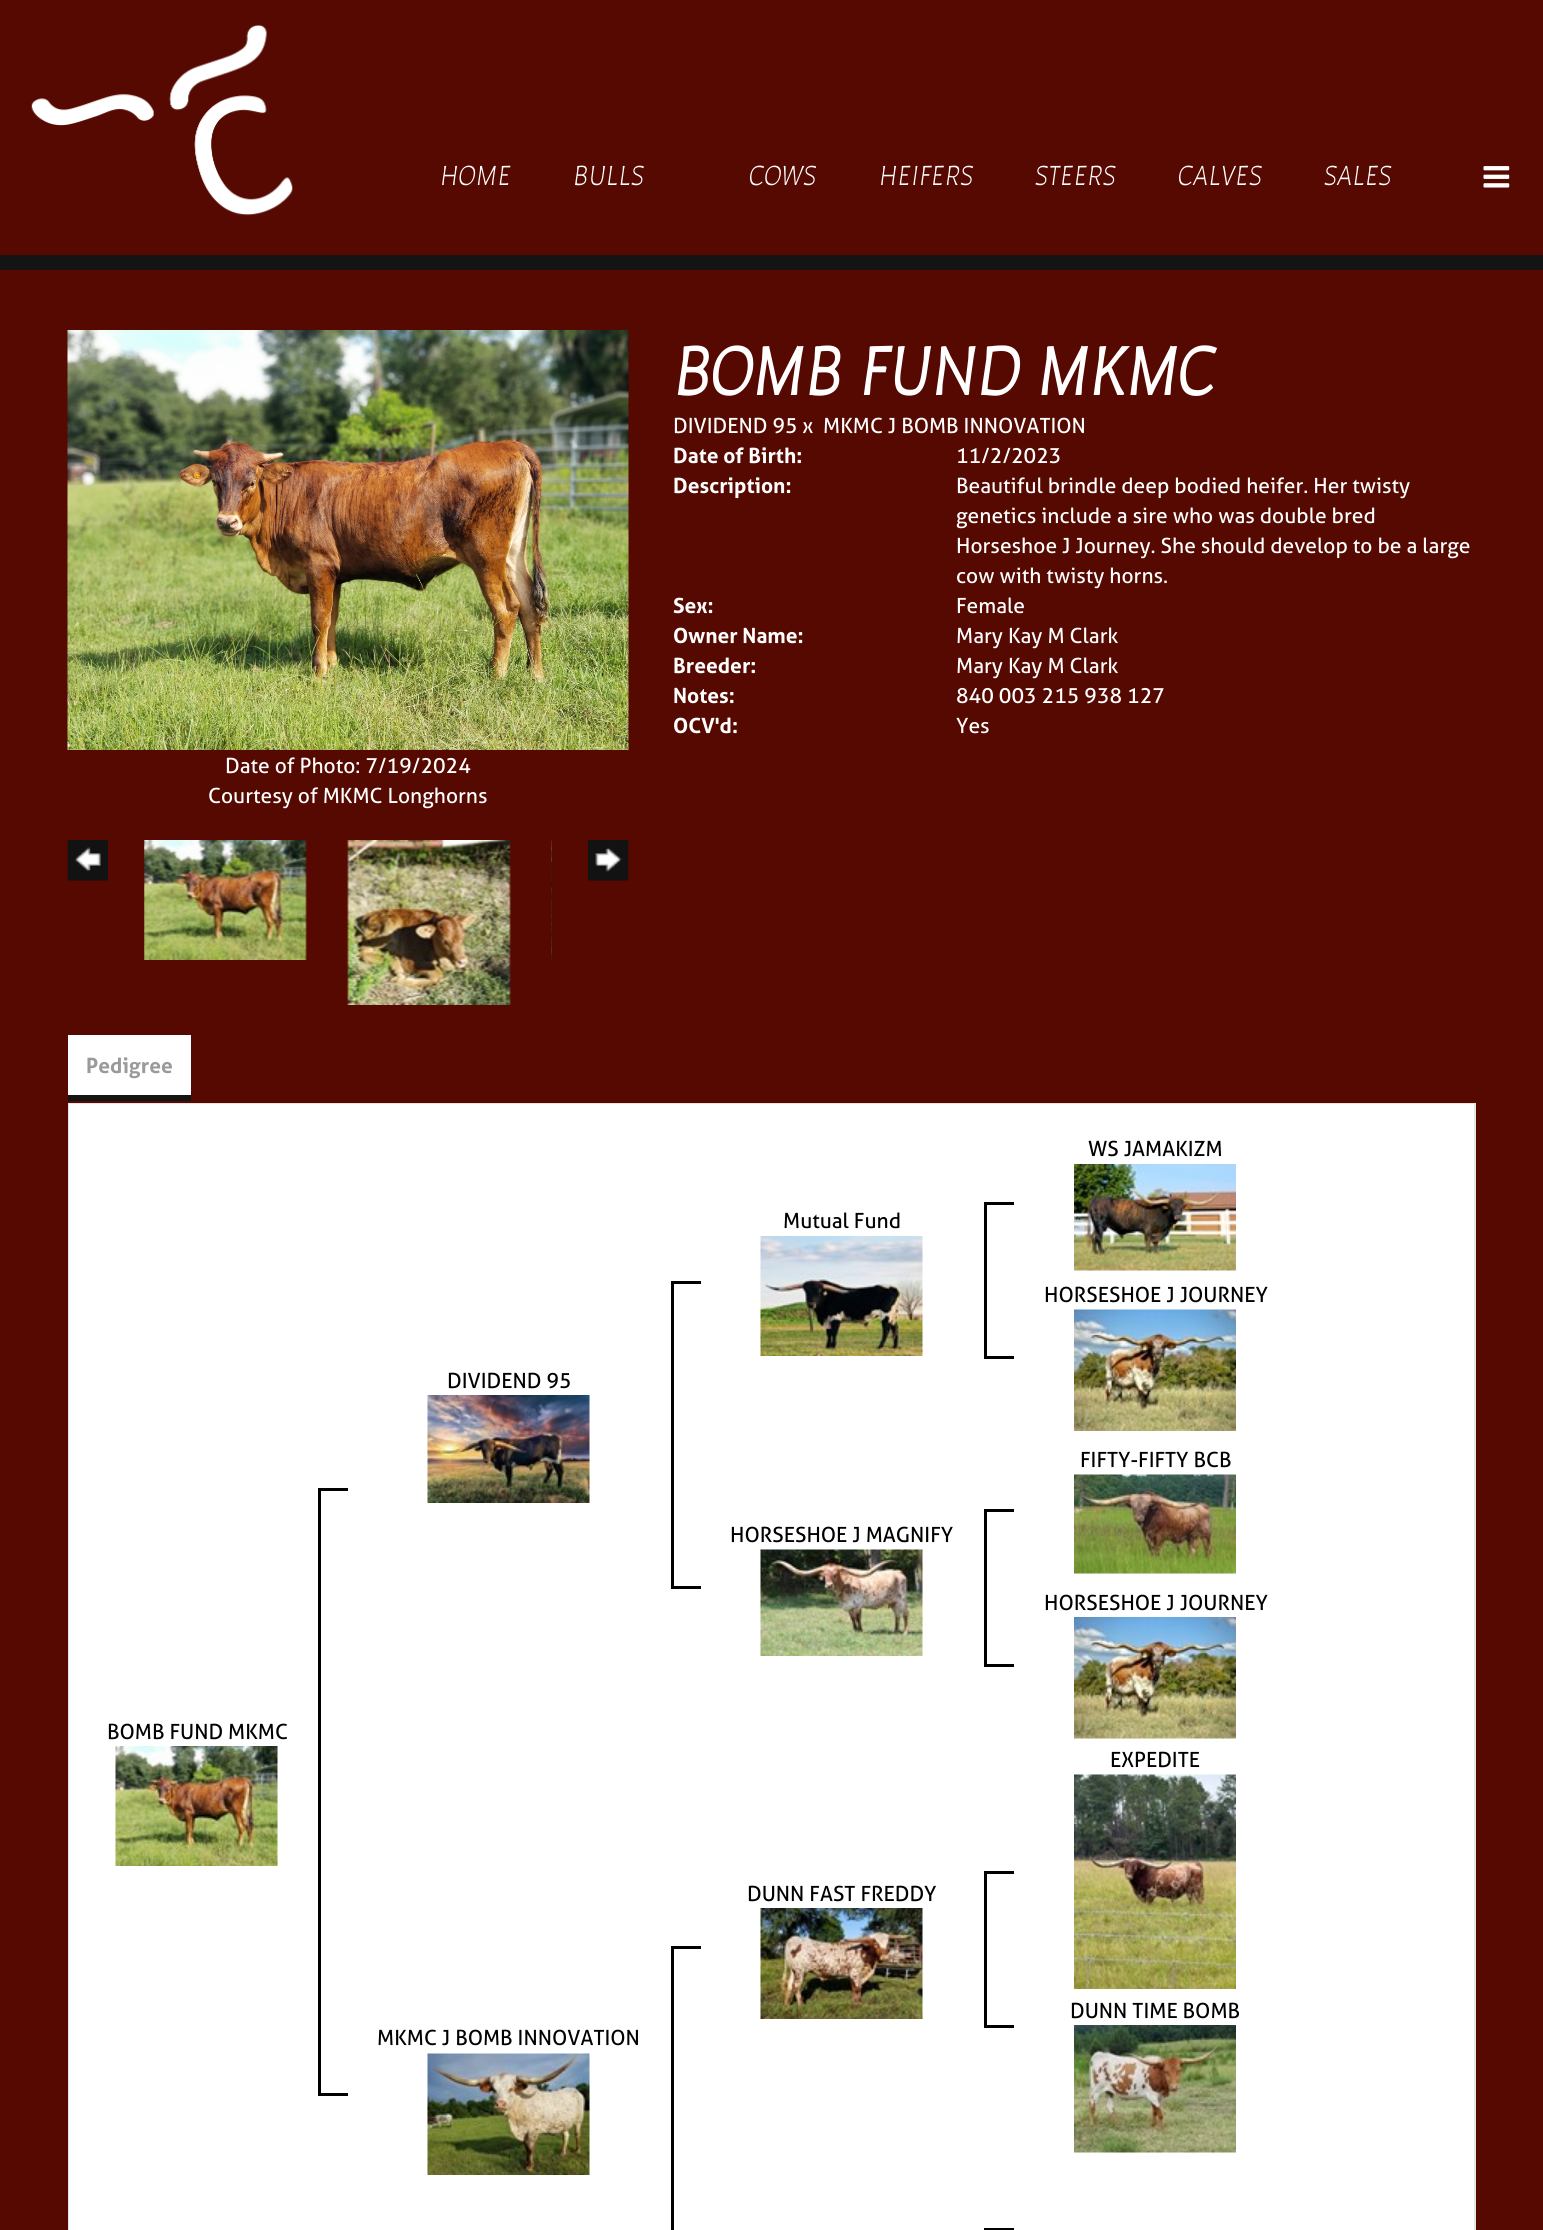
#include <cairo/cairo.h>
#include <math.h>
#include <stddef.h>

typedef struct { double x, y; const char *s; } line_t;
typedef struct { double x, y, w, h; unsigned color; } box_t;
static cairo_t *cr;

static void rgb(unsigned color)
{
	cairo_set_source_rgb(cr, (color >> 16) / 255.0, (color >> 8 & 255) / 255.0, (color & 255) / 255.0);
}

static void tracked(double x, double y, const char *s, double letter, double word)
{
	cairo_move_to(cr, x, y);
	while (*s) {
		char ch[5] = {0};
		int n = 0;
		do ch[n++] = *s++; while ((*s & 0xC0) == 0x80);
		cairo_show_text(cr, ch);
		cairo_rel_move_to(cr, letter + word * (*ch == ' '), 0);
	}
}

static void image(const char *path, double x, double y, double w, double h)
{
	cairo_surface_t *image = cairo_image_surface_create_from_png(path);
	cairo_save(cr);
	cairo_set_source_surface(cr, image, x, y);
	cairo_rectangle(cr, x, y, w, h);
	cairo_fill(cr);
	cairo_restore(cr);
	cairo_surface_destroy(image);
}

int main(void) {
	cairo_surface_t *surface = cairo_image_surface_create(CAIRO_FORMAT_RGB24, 1543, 2230);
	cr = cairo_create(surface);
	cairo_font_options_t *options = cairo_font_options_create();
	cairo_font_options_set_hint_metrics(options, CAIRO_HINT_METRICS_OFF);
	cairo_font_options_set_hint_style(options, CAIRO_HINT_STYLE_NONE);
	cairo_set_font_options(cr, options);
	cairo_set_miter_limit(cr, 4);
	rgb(0x550901);
	cairo_paint(cr);
	image("img/1.png", 31, 24, 262, 192);
	image("img/2.png", 1483, 166, 27, 22);
	rgb(0x141414);
	cairo_rectangle(cr, 0, 255, 1543, 15);
	cairo_fill(cr);
	image("img/3.png", 67, 330, 562, 420);
	image("img/4.png", 67, 840, 41, 41);
	image("img/5.png", 144, 840, 163, 120);
	image("img/6.png", 347, 840, 164, 165);
	image("img/7.png", 551, 840, 1, 122);
	image("img/8.png", 588, 840, 41, 41);
	{
		static const box_t items[] = {
			{68, 1103, 1408, 1, 0xe5e5e5},
			{68, 1095, 123, 6, 0x141414},
			{68, 1035, 123, 60, 0xffffff},
			{69, 1104, 1405, 1126, 0xffffff},
		};
		for (size_t i = 0; i < sizeof items / sizeof *items; i++) {
			rgb(items[i].color);
			cairo_rectangle(cr, items[i].x, items[i].y, items[i].w, items[i].h);
			cairo_fill(cr);
		}
	}
	rgb(0xe5e5e5);
	cairo_new_path(cr);
	cairo_move_to(cr, 1476, 1104);
	cairo_line_to(cr, 1474, 1104);
	cairo_line_to(cr, 1474, 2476);
	cairo_line_to(cr, 1475, 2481);
	cairo_line_to(cr, 1476, 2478);
	cairo_close_path(cr);
	cairo_fill(cr);
	cairo_new_path(cr);
	cairo_move_to(cr, 68, 1104);
	cairo_line_to(cr, 68, 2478);
	cairo_line_to(cr, 68, 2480);
	cairo_line_to(cr, 69, 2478);
	cairo_line_to(cr, 69, 1104);
	cairo_close_path(cr);
	cairo_fill(cr);
	image("img/9.png", 1074, 1164, 162, 107);
	image("img/10.png", 760, 1236, 163, 120);
	{
		static const box_t items[] = {
			{984, 1202, 30, 3, 0x000000},
			{984, 1356, 30, 3, 0x000000},
			{984, 1202, 3, 157, 0x000000},
		};
		for (size_t i = 0; i < sizeof items / sizeof *items; i++) {
			rgb(items[i].color);
			cairo_rectangle(cr, items[i].x, items[i].y, items[i].w, items[i].h);
			cairo_fill(cr);
		}
	}
	image("img/11.png", 427, 1395, 163, 108);
	{
		static const box_t items[] = {
			{671, 1281, 30, 3, 0x000000},
			{671, 1586, 30, 3, 0x000000},
			{671, 1281, 3, 308, 0x000000},
		};
		for (size_t i = 0; i < sizeof items / sizeof *items; i++) {
			rgb(items[i].color);
			cairo_rectangle(cr, items[i].x, items[i].y, items[i].w, items[i].h);
			cairo_fill(cr);
		}
	}
	image("img/12.png", 115, 1746, 163, 120);
	{
		static const box_t items[] = {
			{318, 1488, 30, 3, 0x000000},
			{318, 2093, 30, 3, 0x000000},
			{318, 1488, 3, 608, 0x000000},
		};
		for (size_t i = 0; i < sizeof items / sizeof *items; i++) {
			rgb(items[i].color);
			cairo_rectangle(cr, items[i].x, items[i].y, items[i].w, items[i].h);
			cairo_fill(cr);
		}
	}
	image("img/13.png", 1074, 1309, 162, 122);
	image("img/14.png", 1074, 1474, 162, 100);
	image("img/15.png", 760, 1549, 163, 107);
	{
		static const box_t items[] = {
			{984, 1509, 30, 3, 0x000000},
			{984, 1664, 30, 3, 0x000000},
			{984, 1509, 3, 158, 0x000000},
		};
		for (size_t i = 0; i < sizeof items / sizeof *items; i++) {
			rgb(items[i].color);
			cairo_rectangle(cr, items[i].x, items[i].y, items[i].w, items[i].h);
			cairo_fill(cr);
		}
	}
	image("img/16.png", 1074, 1617, 162, 122);
	image("img/17.png", 1074, 1774, 162, 215);
	image("img/18.png", 760, 1908, 163, 111);
	{
		static const box_t items[] = {
			{984, 1871, 30, 3, 0x000000},
			{984, 2025, 30, 3, 0x000000},
			{984, 1871, 3, 157, 0x000000},
		};
		for (size_t i = 0; i < sizeof items / sizeof *items; i++) {
			rgb(items[i].color);
			cairo_rectangle(cr, items[i].x, items[i].y, items[i].w, items[i].h);
			cairo_fill(cr);
		}
	}
	image("img/19.png", 427, 2053, 163, 122);
	cairo_rectangle(cr, 671, 1946, 30, 3);
	cairo_fill(cr);
	cairo_rectangle(cr, 671, 1946, 3, 284);
	cairo_fill(cr);
	image("img/20.png", 1074, 2025, 162, 128);
	cairo_rectangle(cr, 984, 2228, 30, 2);
	cairo_fill(cr);
	cairo_select_font_face(cr, "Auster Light", CAIRO_FONT_SLANT_ITALIC, CAIRO_FONT_WEIGHT_NORMAL);
	cairo_set_font_size(cr, 30);
	rgb(0xffffff);
	{
		static const line_t items[] = {
			{440, 185, "HOME"},
			{573, 185, "BULLS"},
			{749, 185, "COWS"},
			{879, 185, "HEIFERS"},
			{1035, 185, "STEERS"},
			{1178, 185, "CALVES"},
			{1324, 185, "SALES"},
		};
		for (size_t i = 0; i < sizeof items / sizeof *items; i++) {
			tracked(items[i].x, items[i].y, items[i].s, 0.25, 0);
		}
	}
	cairo_select_font_face(cr, "Auster", CAIRO_FONT_SLANT_ITALIC, CAIRO_FONT_WEIGHT_BOLD);
	cairo_set_font_size(cr, 73.5);
	cairo_move_to(cr, 673, 395);
	cairo_show_text(cr, "BOMB FUND MKMC");
	cairo_select_font_face(cr, "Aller", CAIRO_FONT_SLANT_NORMAL, CAIRO_FONT_WEIGHT_NORMAL);
	cairo_set_font_size(cr, 21);
	cairo_move_to(cr, 673, 433);
	cairo_show_text(cr, "DIVIDEND 95 x");
	cairo_move_to(cr, 823, 433);
	cairo_show_text(cr, "MKMC J BOMB INNOVATION");
	cairo_select_font_face(cr, "Aller", CAIRO_FONT_SLANT_NORMAL, CAIRO_FONT_WEIGHT_BOLD);
	cairo_move_to(cr, 673, 463);
	cairo_show_text(cr, "Date of Birth:");
	cairo_select_font_face(cr, "Aller", CAIRO_FONT_SLANT_NORMAL, CAIRO_FONT_WEIGHT_NORMAL);
	cairo_move_to(cr, 956, 463);
	cairo_show_text(cr, "11/2/2023");
	cairo_select_font_face(cr, "Aller", CAIRO_FONT_SLANT_NORMAL, CAIRO_FONT_WEIGHT_BOLD);
	cairo_move_to(cr, 673, 493);
	cairo_show_text(cr, "Description:");
	cairo_select_font_face(cr, "Aller", CAIRO_FONT_SLANT_NORMAL, CAIRO_FONT_WEIGHT_NORMAL);
	{
		static const line_t items[] = {
			{956, 493, "Beautiful brindle deep bodied heifer. Her twisty"},
			{956, 523, "genetics include a sire who was double bred"},
			{956, 553, "Horseshoe J Journey. She should develop to be a large"},
			{956, 583, "cow with twisty horns."},
		};
		for (size_t i = 0; i < sizeof items / sizeof *items; i++) {
			cairo_move_to(cr, items[i].x, items[i].y);
			cairo_show_text(cr, items[i].s);
		}
	}
	cairo_select_font_face(cr, "Aller", CAIRO_FONT_SLANT_NORMAL, CAIRO_FONT_WEIGHT_BOLD);
	cairo_move_to(cr, 673, 613);
	cairo_show_text(cr, "Sex:");
	cairo_select_font_face(cr, "Aller", CAIRO_FONT_SLANT_NORMAL, CAIRO_FONT_WEIGHT_NORMAL);
	cairo_move_to(cr, 956, 613);
	cairo_show_text(cr, "Female");
	cairo_select_font_face(cr, "Aller", CAIRO_FONT_SLANT_NORMAL, CAIRO_FONT_WEIGHT_BOLD);
	cairo_move_to(cr, 673, 643);
	cairo_show_text(cr, "Owner Name:");
	cairo_select_font_face(cr, "Aller", CAIRO_FONT_SLANT_NORMAL, CAIRO_FONT_WEIGHT_NORMAL);
	cairo_move_to(cr, 956, 643);
	cairo_show_text(cr, "Mary Kay M Clark");
	cairo_select_font_face(cr, "Aller", CAIRO_FONT_SLANT_NORMAL, CAIRO_FONT_WEIGHT_BOLD);
	cairo_move_to(cr, 673, 673);
	cairo_show_text(cr, "Breeder:");
	cairo_select_font_face(cr, "Aller", CAIRO_FONT_SLANT_NORMAL, CAIRO_FONT_WEIGHT_NORMAL);
	cairo_move_to(cr, 956, 673);
	cairo_show_text(cr, "Mary Kay M Clark");
	cairo_select_font_face(cr, "Aller", CAIRO_FONT_SLANT_NORMAL, CAIRO_FONT_WEIGHT_BOLD);
	cairo_move_to(cr, 673, 703);
	cairo_show_text(cr, "Notes:");
	cairo_select_font_face(cr, "Aller", CAIRO_FONT_SLANT_NORMAL, CAIRO_FONT_WEIGHT_NORMAL);
	cairo_move_to(cr, 956, 703);
	cairo_show_text(cr, "840 003 215 938 127");
	cairo_select_font_face(cr, "Aller", CAIRO_FONT_SLANT_NORMAL, CAIRO_FONT_WEIGHT_BOLD);
	cairo_move_to(cr, 673, 733);
	cairo_show_text(cr, "OCV'd:");
	cairo_select_font_face(cr, "Aller", CAIRO_FONT_SLANT_NORMAL, CAIRO_FONT_WEIGHT_NORMAL);
	{
		static const line_t items[] = {
			{956, 733, "Yes"},
			{225, 773, "Date of Photo: 7/19/2024"},
			{208, 803, "Courtesy of MKMC Longhorns"},
		};
		for (size_t i = 0; i < sizeof items / sizeof *items; i++) {
			cairo_move_to(cr, items[i].x, items[i].y);
			cairo_show_text(cr, items[i].s);
		}
	}
	cairo_select_font_face(cr, "Aller", CAIRO_FONT_SLANT_NORMAL, CAIRO_FONT_WEIGHT_BOLD);
	rgb(0x9b9999);
	cairo_move_to(cr, 86, 1073);
	cairo_show_text(cr, "Pedigree");
	cairo_select_font_face(cr, "Aller", CAIRO_FONT_SLANT_NORMAL, CAIRO_FONT_WEIGHT_NORMAL);
	rgb(0x000000);
	{
		static const line_t items[] = {
			{1088, 1156, "WS JAMAKIZM"},
			{783, 1228, "Mutual Fund"},
			{447, 1388, "DIVIDEND 95"},
			{107, 1739, "BOMB FUND MKMC"},
			{1044, 1302, "HORSESHOE J JOURNEY"},
			{1080, 1467, "FIFTY-FIFTY BCB"},
			{730, 1542, "HORSESHOE J MAGNIFY"},
			{1044, 1610, "HORSESHOE J JOURNEY"},
			{1110, 1767, "EXPEDITE"},
			{747, 1901, "DUNN FAST FREDDY"},
			{377, 2045, "MKMC J BOMB INNOVATION"},
			{1070, 2018, "DUNN TIME BOMB"},
		};
		for (size_t i = 0; i < sizeof items / sizeof *items; i++) {
			cairo_move_to(cr, items[i].x, items[i].y);
			cairo_show_text(cr, items[i].s);
		}
	}
	cairo_surface_write_to_png(surface, "page.png");
	cairo_font_options_destroy(options);
	cairo_destroy(cr);
	cairo_surface_destroy(surface);
	return 0;
}
